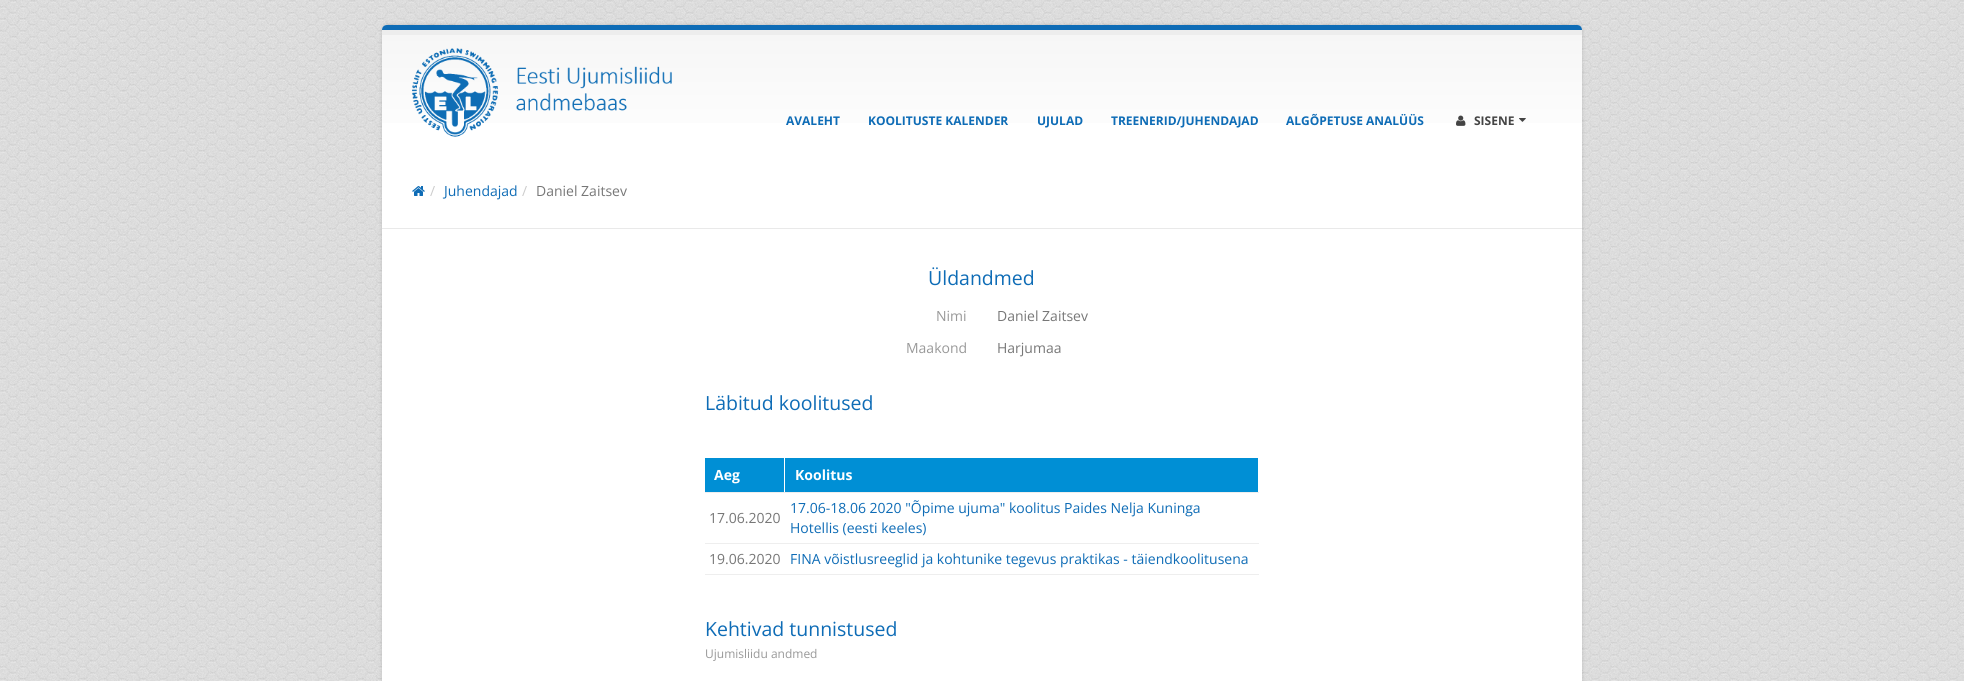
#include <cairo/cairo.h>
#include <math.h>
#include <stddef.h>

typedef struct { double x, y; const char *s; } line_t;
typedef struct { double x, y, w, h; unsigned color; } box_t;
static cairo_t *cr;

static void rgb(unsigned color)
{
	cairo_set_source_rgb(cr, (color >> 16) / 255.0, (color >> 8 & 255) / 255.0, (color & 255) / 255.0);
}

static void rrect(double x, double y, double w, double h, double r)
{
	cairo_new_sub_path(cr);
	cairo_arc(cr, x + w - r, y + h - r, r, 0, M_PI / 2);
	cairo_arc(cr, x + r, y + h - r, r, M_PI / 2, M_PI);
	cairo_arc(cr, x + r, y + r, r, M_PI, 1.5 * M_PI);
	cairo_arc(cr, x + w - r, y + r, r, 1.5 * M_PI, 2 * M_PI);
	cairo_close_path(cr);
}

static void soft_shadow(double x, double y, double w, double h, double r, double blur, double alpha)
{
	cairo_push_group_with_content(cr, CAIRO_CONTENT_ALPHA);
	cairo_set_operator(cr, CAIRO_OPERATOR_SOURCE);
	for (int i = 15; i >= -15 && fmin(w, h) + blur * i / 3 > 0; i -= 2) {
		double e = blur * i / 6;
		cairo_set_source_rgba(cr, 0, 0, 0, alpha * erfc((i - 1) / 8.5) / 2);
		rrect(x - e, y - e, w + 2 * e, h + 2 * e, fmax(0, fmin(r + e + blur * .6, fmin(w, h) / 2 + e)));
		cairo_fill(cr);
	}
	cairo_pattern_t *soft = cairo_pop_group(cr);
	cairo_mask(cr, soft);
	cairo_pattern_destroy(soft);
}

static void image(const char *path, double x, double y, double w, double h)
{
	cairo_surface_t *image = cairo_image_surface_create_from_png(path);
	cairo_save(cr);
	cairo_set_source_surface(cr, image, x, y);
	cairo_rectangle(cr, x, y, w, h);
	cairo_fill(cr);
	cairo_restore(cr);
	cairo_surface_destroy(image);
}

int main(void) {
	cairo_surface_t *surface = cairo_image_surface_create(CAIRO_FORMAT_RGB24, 1964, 681);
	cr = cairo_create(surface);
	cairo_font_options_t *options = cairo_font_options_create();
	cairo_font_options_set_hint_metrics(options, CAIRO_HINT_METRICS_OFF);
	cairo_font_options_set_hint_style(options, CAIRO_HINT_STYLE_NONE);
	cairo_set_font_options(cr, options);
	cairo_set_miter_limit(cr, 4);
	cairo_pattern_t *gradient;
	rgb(0xffffff);
	cairo_paint(cr);
	image("img/1.png", 0, 0, 1964, 681);
	rgb(0x000000);
	soft_shadow(382, 25, 1200, 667, 5, 2, 0.15);
	rgb(0xffffff);
	rrect(382, 25, 1200, 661, 5);
	cairo_fill(cr);
	rgb(0x0e6cb6);
	cairo_new_path(cr);
	cairo_move_to(cr, 387, 25);
	cairo_curve_to(cr, 384, 25, 382, 27, 382, 30);
	cairo_line_to(cr, 1582, 30);
	cairo_curve_to(cr, 1582, 27, 1580, 25, 1577, 25);
	cairo_close_path(cr);
	cairo_fill(cr);
	gradient = cairo_pattern_create_linear(982, 35, 982, 157);
	cairo_pattern_add_color_stop_rgba(gradient, 0, 0.965, 0.965, 0.965, 1);
	cairo_pattern_add_color_stop_rgba(gradient, 1, 1, 1, 1, 1);
	cairo_set_source(cr, gradient);
	cairo_pattern_destroy(gradient);
	cairo_rectangle(cr, 382, 35, 1200, 88);
	cairo_fill(cr);
	rgb(0xededed);
	cairo_rectangle(cr, 382, 30, 1200, 5);
	cairo_fill(cr);
	image("img/2.png", 412, 48, 260, 89);
	image("img/3.png", 1456, 115, 10, 11);
	image("img/4.png", 1519, 118, 7, 4);
	rgb(0xe9e9e9);
	cairo_rectangle(cr, 382, 228, 1200, 1);
	cairo_fill(cr);
	image("img/5.png", 412, 186, 13, 10);
	{
		static const box_t items[] = {
			{705, 458, 79, 34, 0x008fd5},
			{784, 492, 475, 1, 0xeeeeee},
			{784, 492, 1, 1, 0xffffff},
			{705, 492, 80, 1, 0xeeeeee},
			{785, 458, 473, 34, 0x008fd5},
			{705, 543, 554, 1, 0xeeeeee},
			{705, 574, 554, 1, 0xeeeeee},
		};
		for (size_t i = 0; i < sizeof items / sizeof *items; i++) {
			rgb(items[i].color);
			cairo_rectangle(cr, items[i].x, items[i].y, items[i].w, items[i].h);
			cairo_fill(cr);
		}
	}
	cairo_select_font_face(cr, "Open Sans", CAIRO_FONT_SLANT_NORMAL, CAIRO_FONT_WEIGHT_BOLD);
	cairo_set_font_size(cr, 12);
	rgb(0x0e6cb6);
	{
		static const line_t items[] = {
			{786, 125, "AVALEHT"},
			{868, 125, "KOOLITUSTE KALENDER"},
			{1037, 125, "UJULAD"},
			{1111, 125, "TREENERID/JUHENDAJAD"},
			{1286, 125, "ALGÕPETUSE ANALÜÜS"},
		};
		for (size_t i = 0; i < sizeof items / sizeof *items; i++) {
			cairo_move_to(cr, items[i].x, items[i].y);
			cairo_show_text(cr, items[i].s);
		}
	}
	rgb(0x444444);
	cairo_move_to(cr, 1474, 125);
	cairo_show_text(cr, "SISENE");
	cairo_select_font_face(cr, "Open Sans", CAIRO_FONT_SLANT_NORMAL, CAIRO_FONT_WEIGHT_NORMAL);
	cairo_set_font_size(cr, 14);
	rgb(0xcccccc);
	cairo_move_to(cr, 430, 196);
	cairo_show_text(cr, "/");
	rgb(0x0e6cb6);
	cairo_move_to(cr, 444, 196);
	cairo_show_text(cr, "Juhendajad");
	rgb(0xcccccc);
	cairo_move_to(cr, 522, 196);
	cairo_show_text(cr, "/");
	rgb(0x777777);
	cairo_move_to(cr, 536, 196);
	cairo_show_text(cr, "Daniel Zaitsev");
	cairo_set_font_size(cr, 19.5);
	rgb(0x0e6cb6);
	cairo_move_to(cr, 928, 285);
	cairo_show_text(cr, "Üldandmed");
	cairo_set_font_size(cr, 14);
	rgb(0x999999);
	cairo_move_to(cr, 936, 321);
	cairo_show_text(cr, "Nimi");
	rgb(0x777777);
	cairo_move_to(cr, 997, 321);
	cairo_show_text(cr, "Daniel Zaitsev");
	rgb(0x999999);
	cairo_move_to(cr, 906, 353);
	cairo_show_text(cr, "Maakond");
	rgb(0x777777);
	cairo_move_to(cr, 997, 353);
	cairo_show_text(cr, "Harjumaa");
	cairo_set_font_size(cr, 19.5);
	rgb(0x0e6cb6);
	cairo_move_to(cr, 705, 410);
	cairo_show_text(cr, "Läbitud koolitused");
	cairo_select_font_face(cr, "Open Sans", CAIRO_FONT_SLANT_NORMAL, CAIRO_FONT_WEIGHT_BOLD);
	cairo_set_font_size(cr, 14);
	rgb(0xffffff);
	cairo_move_to(cr, 714, 480);
	cairo_show_text(cr, "Aeg");
	cairo_move_to(cr, 795, 480);
	cairo_show_text(cr, "Koolitus");
	cairo_select_font_face(cr, "Open Sans", CAIRO_FONT_SLANT_NORMAL, CAIRO_FONT_WEIGHT_NORMAL);
	rgb(0x777777);
	cairo_move_to(cr, 709, 523);
	cairo_show_text(cr, "17.06.2020");
	rgb(0x0e6cb6);
	cairo_move_to(cr, 790, 513);
	cairo_show_text(cr, "17.06-18.06 2020 \"Õpime ujuma\" koolitus Paides Nelja Kuninga");
	cairo_move_to(cr, 790, 533);
	cairo_show_text(cr, "Hotellis (eesti keeles)");
	rgb(0x777777);
	cairo_move_to(cr, 709, 564);
	cairo_show_text(cr, "19.06.2020");
	rgb(0x0e6cb6);
	cairo_move_to(cr, 790, 564);
	cairo_show_text(cr, "FINA võistlusreeglid ja kohtunike tegevus praktikas - täiendkoolitusena");
	cairo_set_font_size(cr, 19.5);
	cairo_move_to(cr, 705, 636);
	cairo_show_text(cr, "Kehtivad tunnistused");
	cairo_set_font_size(cr, 12);
	rgb(0x999999);
	cairo_move_to(cr, 705, 658);
	cairo_show_text(cr, "Ujumisliidu andmed");
	cairo_surface_write_to_png(surface, "page.png");
	cairo_font_options_destroy(options);
	cairo_destroy(cr);
	cairo_surface_destroy(surface);
	return 0;
}
